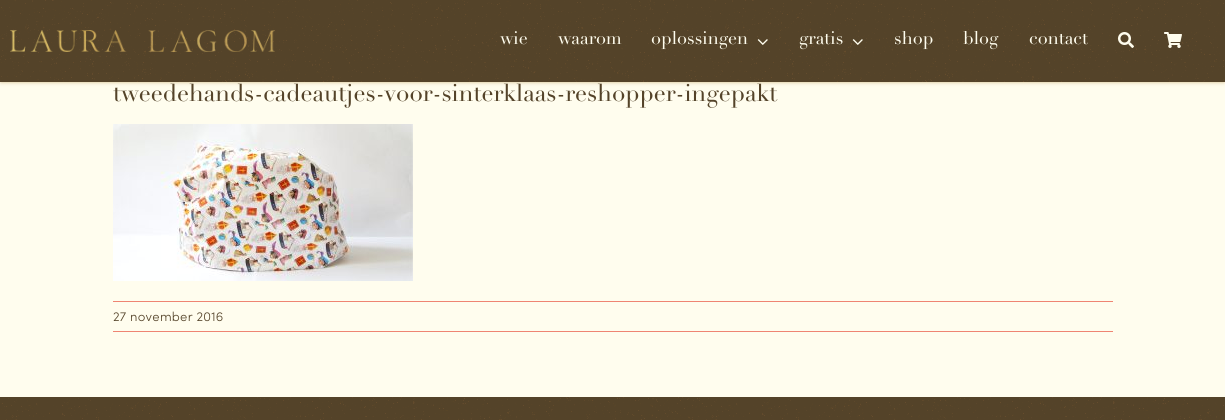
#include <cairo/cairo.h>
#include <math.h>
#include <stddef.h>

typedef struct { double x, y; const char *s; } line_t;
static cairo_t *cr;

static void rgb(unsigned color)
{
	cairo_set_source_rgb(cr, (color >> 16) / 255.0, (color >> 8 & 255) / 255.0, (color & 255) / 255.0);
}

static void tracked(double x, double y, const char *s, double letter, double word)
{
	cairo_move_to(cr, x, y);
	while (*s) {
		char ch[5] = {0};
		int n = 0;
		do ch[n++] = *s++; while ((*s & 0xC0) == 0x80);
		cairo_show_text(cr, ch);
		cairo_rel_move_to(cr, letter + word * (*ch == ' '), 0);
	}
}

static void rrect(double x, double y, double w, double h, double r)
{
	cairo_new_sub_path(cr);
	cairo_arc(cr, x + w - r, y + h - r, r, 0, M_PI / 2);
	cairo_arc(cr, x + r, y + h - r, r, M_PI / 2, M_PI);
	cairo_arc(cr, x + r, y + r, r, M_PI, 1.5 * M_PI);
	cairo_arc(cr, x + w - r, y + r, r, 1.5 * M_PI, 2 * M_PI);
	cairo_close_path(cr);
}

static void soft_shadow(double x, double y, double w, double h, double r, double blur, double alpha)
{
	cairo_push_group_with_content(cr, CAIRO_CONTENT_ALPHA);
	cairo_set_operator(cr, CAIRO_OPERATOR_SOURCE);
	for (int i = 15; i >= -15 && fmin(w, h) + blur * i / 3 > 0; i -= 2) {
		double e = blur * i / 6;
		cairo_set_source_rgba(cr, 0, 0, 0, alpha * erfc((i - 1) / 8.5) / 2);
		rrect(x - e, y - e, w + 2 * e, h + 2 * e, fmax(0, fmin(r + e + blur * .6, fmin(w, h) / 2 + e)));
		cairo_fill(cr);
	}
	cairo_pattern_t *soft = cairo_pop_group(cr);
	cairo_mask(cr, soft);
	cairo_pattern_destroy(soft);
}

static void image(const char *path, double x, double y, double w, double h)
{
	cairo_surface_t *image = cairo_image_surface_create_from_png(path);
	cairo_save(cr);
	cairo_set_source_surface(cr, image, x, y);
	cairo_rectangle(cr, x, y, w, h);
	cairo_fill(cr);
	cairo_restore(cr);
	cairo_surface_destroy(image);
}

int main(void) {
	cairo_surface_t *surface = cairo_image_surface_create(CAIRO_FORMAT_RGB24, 1225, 420);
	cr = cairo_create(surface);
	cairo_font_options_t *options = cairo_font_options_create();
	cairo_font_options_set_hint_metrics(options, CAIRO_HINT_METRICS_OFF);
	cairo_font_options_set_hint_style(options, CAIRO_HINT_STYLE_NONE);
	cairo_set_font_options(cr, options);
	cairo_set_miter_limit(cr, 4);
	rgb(0xfffdee);
	cairo_paint(cr);
	rgb(0xba9753);
	soft_shadow(1, 1, 1223, 80, 0, 2.5, 1);
	image("img/1.png", 0, 0, 1225, 82);
	image("img/2.png", 10, 30, 265, 22);
	image("img/3.png", 757, 39, 11, 6);
	image("img/4.png", 852, 39, 11, 6);
	image("img/5.png", 1118, 32, 16, 16);
	image("img/6.png", 1164, 32, 18, 16);
	image("img/7.png", 113, 124, 300, 157);
	rgb(0xef8472);
	cairo_rectangle(cr, 113, 301, 1000, 1);
	cairo_fill(cr);
	cairo_rectangle(cr, 113, 331, 1000, 1);
	cairo_fill(cr);
	image("img/8.png", 0, 397, 1225, 23);
	cairo_select_font_face(cr, "Didot", CAIRO_FONT_SLANT_NORMAL, CAIRO_FONT_WEIGHT_NORMAL);
	cairo_set_font_size(cr, 18);
	rgb(0xfffdee);
	{
		static const line_t items[] = {
			{500, 44, "wie"},
			{558, 44, "waarom"},
			{651, 44, "oplossingen"},
			{799, 44, "gratis"},
			{894, 44, "shop"},
			{963, 44, "blog"},
			{1029, 44, "contact"},
		};
		for (size_t i = 0; i < sizeof items / sizeof *items; i++) {
			cairo_move_to(cr, items[i].x, items[i].y);
			cairo_show_text(cr, items[i].s);
		}
	}
	cairo_set_font_size(cr, 24);
	rgb(0x544329);
	cairo_move_to(cr, 113, 101);
	cairo_show_text(cr, "tweedehands-cadeautjes-voor-sinterklaas-reshopper-ingepakt");
	cairo_select_font_face(cr, "Sofia Light", CAIRO_FONT_SLANT_NORMAL, CAIRO_FONT_WEIGHT_NORMAL);
	cairo_set_font_size(cr, 13);
	tracked(113, 321, "27 november 2016", 0.25, 0);
	cairo_surface_write_to_png(surface, "page.png");
	cairo_font_options_destroy(options);
	cairo_destroy(cr);
	cairo_surface_destroy(surface);
	return 0;
}
